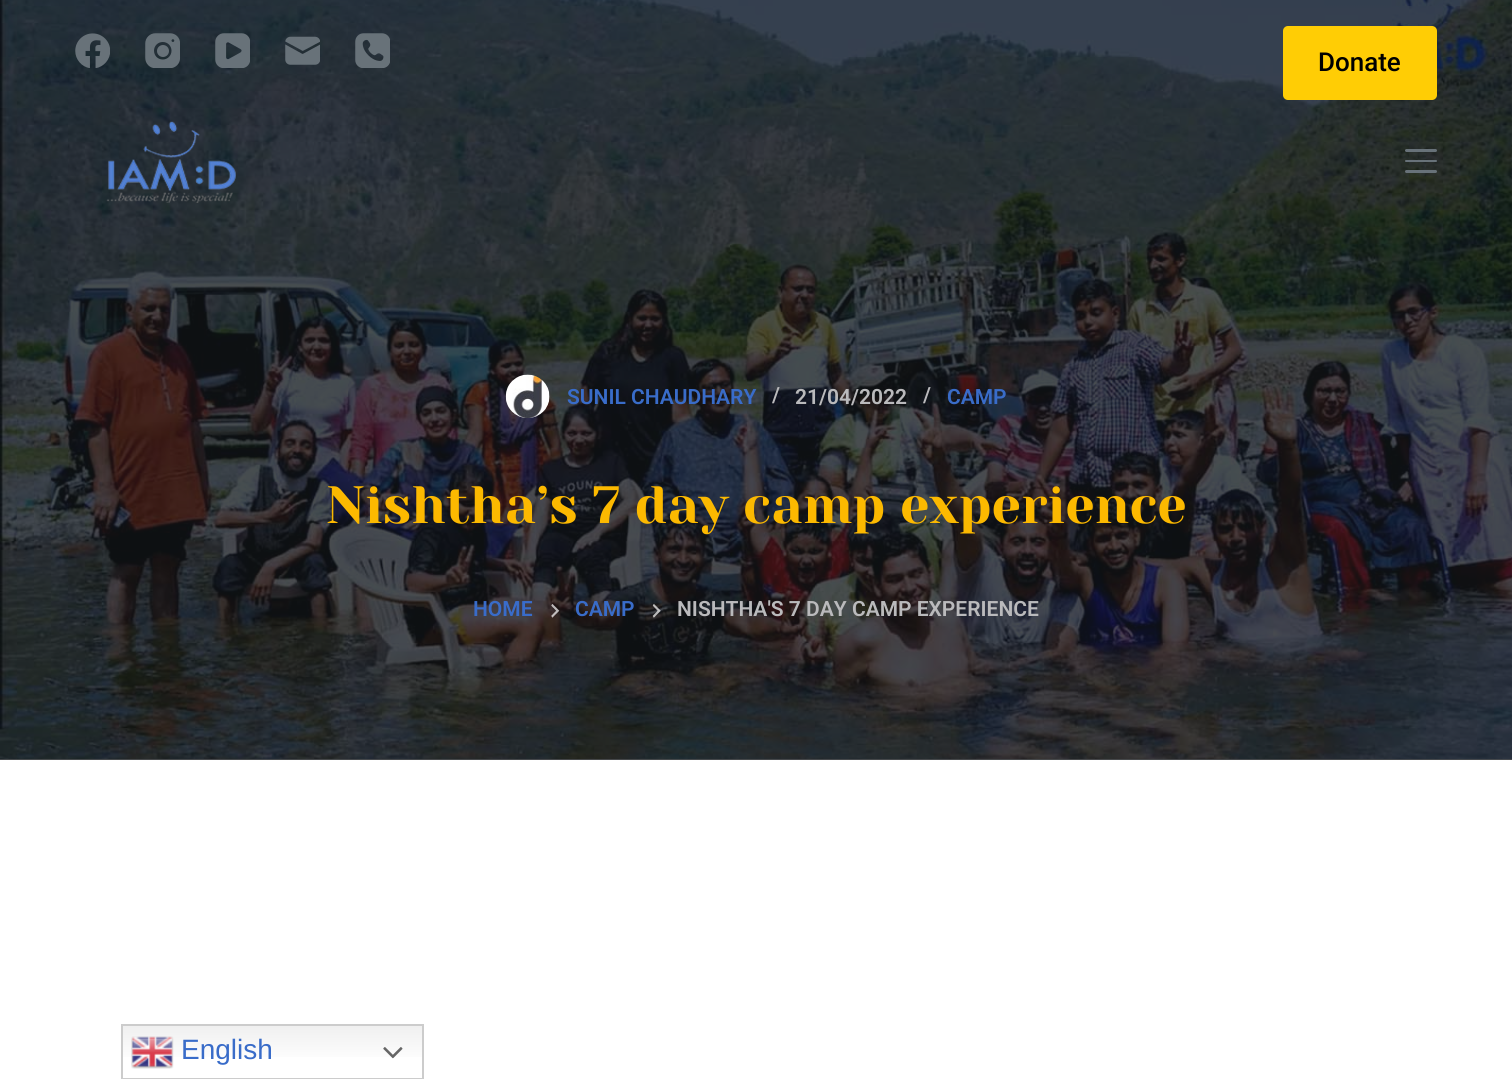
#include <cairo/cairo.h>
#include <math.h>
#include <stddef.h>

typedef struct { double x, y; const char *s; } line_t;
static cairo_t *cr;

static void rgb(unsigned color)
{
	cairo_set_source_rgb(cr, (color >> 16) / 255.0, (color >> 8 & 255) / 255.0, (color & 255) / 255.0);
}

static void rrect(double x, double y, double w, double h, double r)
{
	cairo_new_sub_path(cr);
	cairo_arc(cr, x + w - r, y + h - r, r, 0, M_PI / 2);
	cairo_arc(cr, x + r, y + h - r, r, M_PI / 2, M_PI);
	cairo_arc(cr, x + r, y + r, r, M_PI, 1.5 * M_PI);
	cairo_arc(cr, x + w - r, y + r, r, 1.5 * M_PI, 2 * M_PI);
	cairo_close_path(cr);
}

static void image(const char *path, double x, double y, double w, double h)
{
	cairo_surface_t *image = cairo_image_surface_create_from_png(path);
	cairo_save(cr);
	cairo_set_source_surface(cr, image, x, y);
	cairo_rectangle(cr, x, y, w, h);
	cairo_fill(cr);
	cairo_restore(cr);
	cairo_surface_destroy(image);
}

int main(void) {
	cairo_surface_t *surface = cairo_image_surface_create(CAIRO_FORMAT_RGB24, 1512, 1079);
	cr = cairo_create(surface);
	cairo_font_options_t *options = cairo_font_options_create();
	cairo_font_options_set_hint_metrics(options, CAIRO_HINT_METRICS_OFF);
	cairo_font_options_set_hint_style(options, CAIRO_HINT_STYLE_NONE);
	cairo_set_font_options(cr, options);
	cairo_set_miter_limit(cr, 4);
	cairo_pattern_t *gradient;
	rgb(0xffffff);
	cairo_paint(cr);
	rgb(0x494c4e);
	cairo_rectangle(cr, 0, 759, 1512, 1);
	cairo_fill(cr);
	image("img/7.png", 0, 0, 1512, 760);
	image("img/1.png", 75, 33, 35, 35);
	image("img/2.png", 145, 33, 35, 35);
	image("img/3.png", 215, 33, 35, 35);
	image("img/4.png", 285, 36, 35, 29);
	image("img/5.png", 355, 33, 35, 35);
	rgb(0xffcd05);
	rrect(1283, 26, 154, 74, 5);
	cairo_fill(cr);
	image("img/6.png", 106, 121, 130, 82);
	rgb(0x687279);
	rrect(1405, 149, 32, 3, 1.5);
	cairo_fill(cr);
	rrect(1405, 160, 32, 2, 1);
	cairo_fill(cr);
	rrect(1405, 170, 32, 3, 1.5);
	cairo_fill(cr);
	image("img/8.png", 505, 374, 45, 44);
	image("img/9.png", 551, 604, 9, 14);
	image("img/10.png", 652, 604, 9, 14);
	gradient = cairo_pattern_create_linear(272, 1024, 272, 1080);
	cairo_pattern_add_color_stop_rgba(gradient, 0, 0.937, 0.937, 0.937, 1);
	cairo_pattern_add_color_stop_rgba(gradient, 0.7, 1, 1, 1, 1);
	cairo_set_source(cr, gradient);
	cairo_pattern_destroy(gradient);
	cairo_rectangle(cr, 123, 1026, 299, 31);
	cairo_fill(cr);
	cairo_rectangle(cr, 122, 1025, 301, 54);
	rgb(0xcccccc);
	cairo_stroke(cr);
	image("img/11.png", 131, 1036, 43, 33);
	image("img/12.png", 383, 1047, 20, 12);
	cairo_select_font_face(cr, "Roboto Medium", CAIRO_FONT_SLANT_NORMAL, CAIRO_FONT_WEIGHT_NORMAL);
	cairo_set_font_size(cr, 26);
	rgb(0x000000);
	cairo_move_to(cr, 1318, 71);
	cairo_show_text(cr, "Donate");
	cairo_select_font_face(cr, "Roboto SemiBold", CAIRO_FONT_SLANT_NORMAL, CAIRO_FONT_WEIGHT_NORMAL);
	cairo_set_font_size(cr, 21);
	rgb(0x396cc9);
	cairo_move_to(cr, 567, 404);
	cairo_show_text(cr, "SUNIL CHAUDHARY");
	rgb(0xbababc);
	{
		static const line_t items[] = {
			{772, 402, "/"},
			{795, 404, "21/04/2022"},
			{923, 402, "/"},
		};
		for (size_t i = 0; i < sizeof items / sizeof *items; i++) {
			cairo_move_to(cr, items[i].x, items[i].y);
			cairo_show_text(cr, items[i].s);
		}
	}
	rgb(0x396cc9);
	cairo_move_to(cr, 947, 404);
	cairo_show_text(cr, "CAMP");
	cairo_select_font_face(cr, "Yeseva One", CAIRO_FONT_SLANT_NORMAL, CAIRO_FONT_WEIGHT_NORMAL);
	cairo_set_font_size(cr, 52.5);
	rgb(0xfcb900);
	cairo_move_to(cr, 326, 523);
	cairo_show_text(cr, "Nishtha’s 7 day camp experience");
	cairo_select_font_face(cr, "Roboto SemiBold", CAIRO_FONT_SLANT_NORMAL, CAIRO_FONT_WEIGHT_NORMAL);
	cairo_set_font_size(cr, 21);
	rgb(0x396cc9);
	cairo_move_to(cr, 473, 616);
	cairo_show_text(cr, "HOME");
	cairo_move_to(cr, 575, 616);
	cairo_show_text(cr, "CAMP");
	rgb(0xbababc);
	cairo_move_to(cr, 677, 616);
	cairo_show_text(cr, "NISHTHA'S 7 DAY CAMP EXPERIENCE");
	cairo_select_font_face(cr, "Liberation Sans", CAIRO_FONT_SLANT_NORMAL, CAIRO_FONT_WEIGHT_NORMAL);
	cairo_set_font_size(cr, 28);
	rgb(0x396cc9);
	cairo_move_to(cr, 181, 1059);
	cairo_show_text(cr, "English");
	cairo_surface_write_to_png(surface, "page.png");
	cairo_font_options_destroy(options);
	cairo_destroy(cr);
	cairo_surface_destroy(surface);
	return 0;
}
